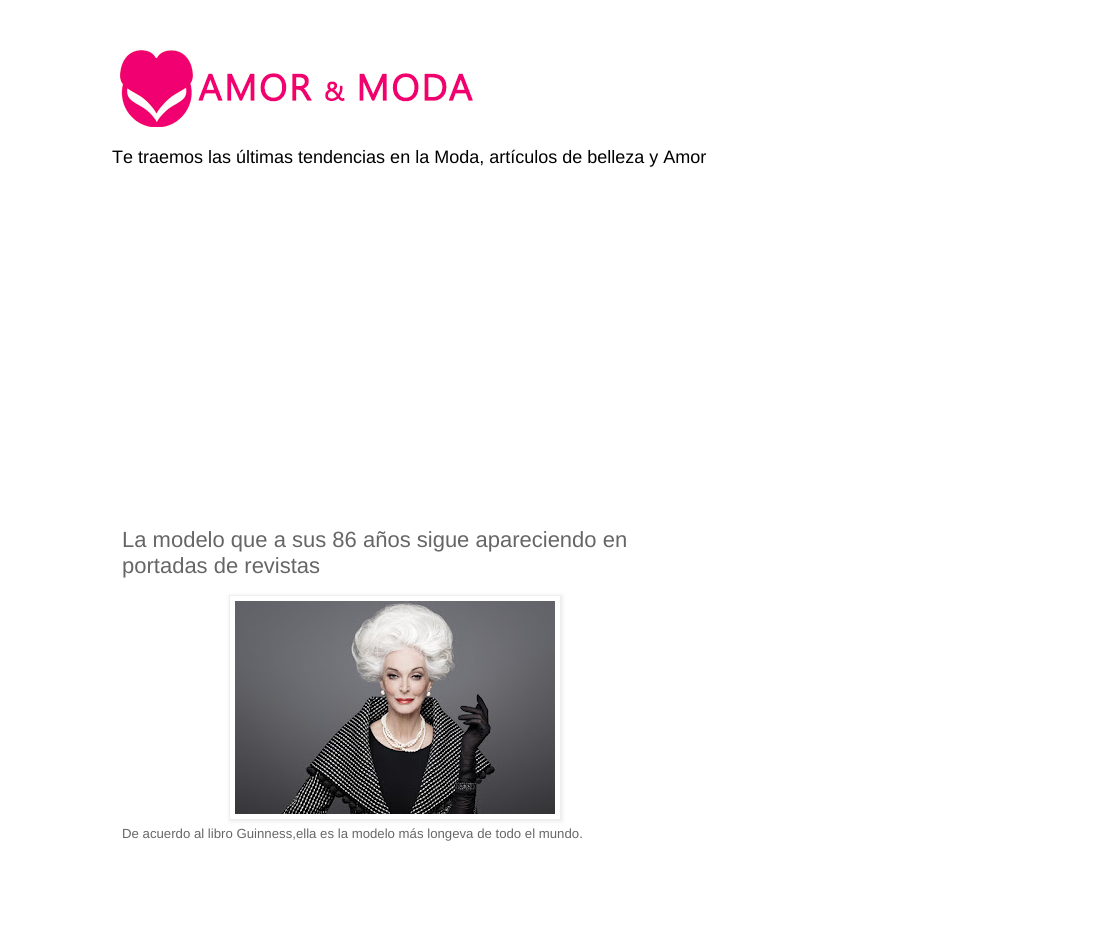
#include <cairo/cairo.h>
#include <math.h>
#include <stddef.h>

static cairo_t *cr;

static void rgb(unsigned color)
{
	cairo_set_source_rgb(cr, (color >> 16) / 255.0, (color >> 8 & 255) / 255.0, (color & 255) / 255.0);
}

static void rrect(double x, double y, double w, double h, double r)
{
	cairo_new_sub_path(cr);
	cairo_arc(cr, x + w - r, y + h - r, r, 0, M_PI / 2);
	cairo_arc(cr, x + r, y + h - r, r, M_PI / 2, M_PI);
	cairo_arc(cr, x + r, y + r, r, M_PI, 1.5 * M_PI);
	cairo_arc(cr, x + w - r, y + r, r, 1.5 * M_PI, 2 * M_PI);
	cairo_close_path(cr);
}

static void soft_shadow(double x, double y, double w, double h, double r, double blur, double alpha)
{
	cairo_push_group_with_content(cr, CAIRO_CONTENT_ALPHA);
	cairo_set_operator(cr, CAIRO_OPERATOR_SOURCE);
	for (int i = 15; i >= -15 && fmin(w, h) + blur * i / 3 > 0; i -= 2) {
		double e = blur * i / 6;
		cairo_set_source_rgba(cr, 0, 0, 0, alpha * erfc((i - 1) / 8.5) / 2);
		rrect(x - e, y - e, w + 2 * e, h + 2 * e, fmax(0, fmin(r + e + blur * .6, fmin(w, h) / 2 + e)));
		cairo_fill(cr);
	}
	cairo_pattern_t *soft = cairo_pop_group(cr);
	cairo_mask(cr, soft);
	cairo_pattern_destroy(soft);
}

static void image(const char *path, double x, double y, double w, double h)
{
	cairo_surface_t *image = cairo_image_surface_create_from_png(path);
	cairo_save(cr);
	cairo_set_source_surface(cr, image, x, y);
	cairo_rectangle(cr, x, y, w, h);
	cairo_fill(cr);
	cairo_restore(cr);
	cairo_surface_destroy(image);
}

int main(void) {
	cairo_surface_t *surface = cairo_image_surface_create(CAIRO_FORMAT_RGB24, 1099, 933);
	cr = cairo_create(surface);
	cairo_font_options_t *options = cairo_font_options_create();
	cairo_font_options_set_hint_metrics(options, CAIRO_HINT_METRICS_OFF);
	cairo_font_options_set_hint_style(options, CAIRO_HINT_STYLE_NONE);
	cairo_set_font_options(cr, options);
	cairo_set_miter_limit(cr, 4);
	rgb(0xffffff);
	cairo_paint(cr);
	image("img/1.png", 120, 49, 353, 78);
	cairo_save(cr);
	cairo_set_fill_rule(cr, CAIRO_FILL_RULE_EVEN_ODD);
	cairo_new_path(cr);
	cairo_move_to(cr, 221, 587);
	cairo_line_to(cr, 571, 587);
	cairo_line_to(cr, 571, 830);
	cairo_line_to(cr, 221, 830);
	cairo_close_path(cr);
	cairo_move_to(cr, 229, 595);
	cairo_line_to(cr, 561, 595);
	cairo_line_to(cr, 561, 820);
	cairo_line_to(cr, 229, 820);
	cairo_close_path(cr);
	cairo_clip(cr);
	rgb(0x000000);
	soft_shadow(230, 596, 332, 225, 0, 2.5, 0.1);
	cairo_restore(cr);
	cairo_rectangle(cr, 229.5, 595.5, 331, 224);
	rgb(0xeeeeee);
	cairo_set_line_width(cr, 1);
	cairo_stroke(cr);
	image("img/2.png", 235, 601, 320, 213);
	cairo_select_font_face(cr, "Liberation Sans", CAIRO_FONT_SLANT_NORMAL, CAIRO_FONT_WEIGHT_NORMAL);
	cairo_set_font_size(cr, 18);
	rgb(0x000000);
	cairo_move_to(cr, 112, 163);
	cairo_show_text(cr, "Te traemos las últimas tendencias en la Moda, artículos de belleza y Amor");
	cairo_set_font_size(cr, 22);
	rgb(0x666666);
	cairo_move_to(cr, 122, 547);
	cairo_show_text(cr, "La modelo que a sus 86 años sigue apareciendo en");
	cairo_move_to(cr, 122, 573);
	cairo_show_text(cr, "portadas de revistas");
	cairo_set_font_size(cr, 13.2);
	cairo_move_to(cr, 122, 838);
	cairo_show_text(cr, "De acuerdo al libro Guinness,ella es la modelo más longeva de todo el mundo.");
	cairo_surface_write_to_png(surface, "page.png");
	cairo_font_options_destroy(options);
	cairo_destroy(cr);
	cairo_surface_destroy(surface);
	return 0;
}
